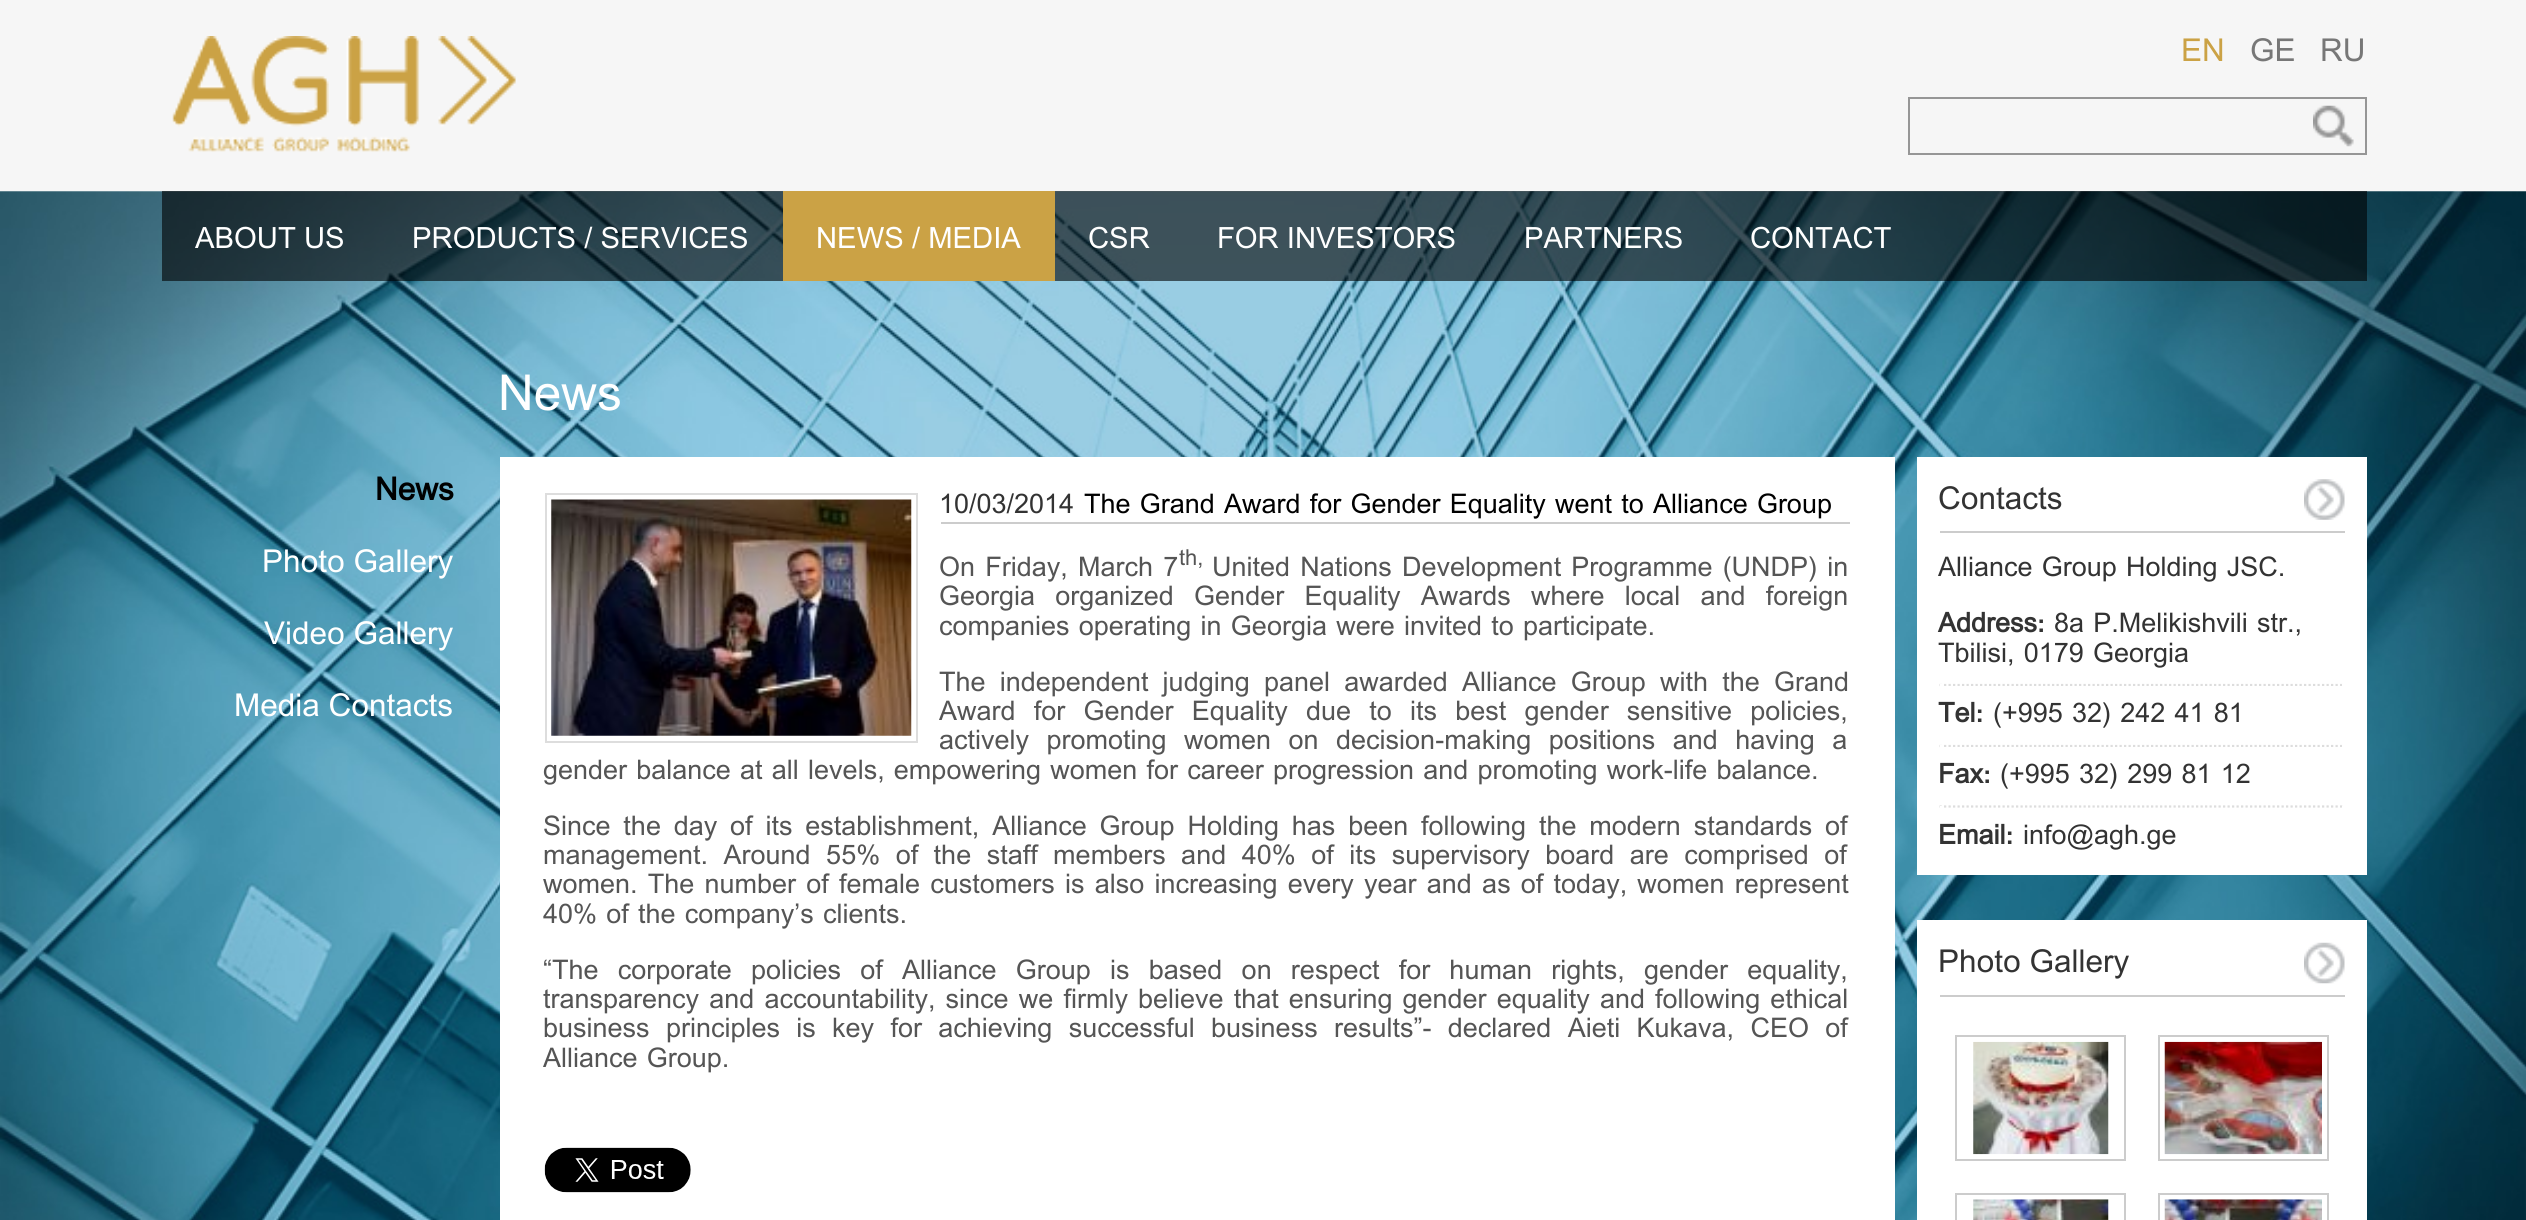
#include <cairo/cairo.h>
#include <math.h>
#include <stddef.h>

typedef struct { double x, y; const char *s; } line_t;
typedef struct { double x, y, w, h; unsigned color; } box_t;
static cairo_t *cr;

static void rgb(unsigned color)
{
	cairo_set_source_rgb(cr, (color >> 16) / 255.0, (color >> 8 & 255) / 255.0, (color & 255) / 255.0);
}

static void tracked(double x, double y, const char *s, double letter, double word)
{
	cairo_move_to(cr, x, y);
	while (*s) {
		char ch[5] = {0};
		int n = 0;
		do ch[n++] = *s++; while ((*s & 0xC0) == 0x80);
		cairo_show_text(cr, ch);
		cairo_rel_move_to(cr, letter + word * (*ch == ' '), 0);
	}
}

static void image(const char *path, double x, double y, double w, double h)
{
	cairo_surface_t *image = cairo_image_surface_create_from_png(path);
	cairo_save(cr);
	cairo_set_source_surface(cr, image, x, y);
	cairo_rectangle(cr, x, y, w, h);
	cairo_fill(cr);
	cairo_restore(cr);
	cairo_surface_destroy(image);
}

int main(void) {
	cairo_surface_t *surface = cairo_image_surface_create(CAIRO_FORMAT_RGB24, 2526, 1220);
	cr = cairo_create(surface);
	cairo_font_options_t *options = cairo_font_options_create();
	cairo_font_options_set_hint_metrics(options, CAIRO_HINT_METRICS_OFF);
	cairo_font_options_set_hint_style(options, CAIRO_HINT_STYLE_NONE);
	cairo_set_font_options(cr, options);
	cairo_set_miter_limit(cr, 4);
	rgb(0xffffff);
	cairo_paint(cr);
	rgb(0xf6f6f6);
	cairo_rectangle(cr, 0, 0, 2526, 191);
	cairo_fill(cr);
	image("img/1.png", 172, 36, 344, 116);
	cairo_rectangle(cr, 1909, 98, 457, 56);
	rgb(0x969696);
	cairo_stroke(cr);
	image("img/2.png", 2313, 105, 41, 42);
	image("img/3.png", 0, 191, 2526, 1029);
	cairo_set_source_rgba(cr, 0, 0, 0, 0.6);
	cairo_rectangle(cr, 162, 191, 2205, 90);
	cairo_fill(cr);
	rgb(0xcba245);
	cairo_rectangle(cr, 783, 191, 272, 90);
	cairo_fill(cr);
	rgb(0xffffff);
	cairo_rectangle(cr, 500, 457, 1395, 763);
	cairo_fill(cr);
	cairo_rectangle(cr, 546, 494, 371, 248);
	rgb(0xdddddd);
	cairo_stroke(cr);
	image("img/4.png", 551, 499, 361, 237);
	rgb(0xcccccc);
	cairo_rectangle(cr, 941, 522, 909, 2);
	cairo_fill(cr);
	image("img/5.png", 544, 1147, 147, 46);
	rgb(0xffffff);
	cairo_rectangle(cr, 1917, 457, 450, 418);
	cairo_fill(cr);
	rgb(0xcccccc);
	cairo_rectangle(cr, 1940, 531, 405, 2);
	cairo_fill(cr);
	image("img/6.png", 2304, 479, 41, 41);
	cairo_new_path(cr);
	cairo_move_to(cr, 1939.5, 685);
	cairo_line_to(cr, 2344.5, 685);
	rgb(0xdddddd);
	cairo_set_line_width(cr, 2.2);
	cairo_set_dash(cr, (double[]){2.25, 2.25}, 2, 0);
	cairo_stroke(cr);
	{
		static const box_t items[] = {
			{2342, 684, 1, 5, 0xffffff},
			{1940, 686, 405, 1, 0xffffff},
			{1940, 684, 2, 5, 0xffffff},
		};
		for (size_t i = 0; i < sizeof items / sizeof *items; i++) {
			rgb(items[i].color);
			cairo_rectangle(cr, items[i].x, items[i].y, items[i].w, items[i].h);
			cairo_fill(cr);
		}
	}
	cairo_new_path(cr);
	cairo_move_to(cr, 1939.5, 746);
	cairo_line_to(cr, 2344.5, 746);
	rgb(0xdddddd);
	cairo_stroke(cr);
	{
		static const box_t items[] = {
			{2342, 745, 1, 5, 0xffffff},
			{1940, 747, 405, 1, 0xffffff},
			{1940, 745, 2, 5, 0xffffff},
		};
		for (size_t i = 0; i < sizeof items / sizeof *items; i++) {
			rgb(items[i].color);
			cairo_rectangle(cr, items[i].x, items[i].y, items[i].w, items[i].h);
			cairo_fill(cr);
		}
	}
	cairo_new_path(cr);
	cairo_move_to(cr, 1939.5, 806.5);
	cairo_line_to(cr, 2344.5, 806.5);
	rgb(0xdddddd);
	cairo_stroke(cr);
	{
		static const box_t items[] = {
			{2342, 806, 1, 5, 0xffffff},
			{1940, 806, 2, 5, 0xffffff},
			{1917, 920, 450, 300, 0xffffff},
			{1940, 995, 405, 2, 0xcccccc},
		};
		for (size_t i = 0; i < sizeof items / sizeof *items; i++) {
			rgb(items[i].color);
			cairo_rectangle(cr, items[i].x, items[i].y, items[i].w, items[i].h);
			cairo_fill(cr);
		}
	}
	image("img/7.png", 2304, 942, 41, 42);
	cairo_rectangle(cr, 1956, 1036, 169, 124);
	cairo_set_line_width(cr, 2);
	cairo_set_dash(cr, NULL, 0, 0);
	cairo_stroke(cr);
	image("img/8.png", 1973, 1041, 136, 114);
	cairo_rectangle(cr, 2159, 1036, 169, 124);
	cairo_stroke(cr);
	image("img/9.png", 2164, 1041, 158, 114);
	cairo_rectangle(cr, 1956, 1194, 169, 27);
	cairo_stroke(cr);
	image("img/10.png", 1973, 1199, 136, 21);
	cairo_rectangle(cr, 2159, 1194, 169, 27);
	cairo_stroke(cr);
	image("img/11.png", 2164, 1199, 158, 21);
	cairo_select_font_face(cr, "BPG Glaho", CAIRO_FONT_SLANT_NORMAL, CAIRO_FONT_WEIGHT_NORMAL);
	cairo_set_font_size(cr, 31.5);
	rgb(0xcba245);
	cairo_move_to(cr, 2181, 61);
	cairo_show_text(cr, "EN");
	rgb(0x777777);
	cairo_move_to(cr, 2250, 61);
	cairo_show_text(cr, "GE");
	cairo_move_to(cr, 2320, 61);
	cairo_show_text(cr, "RU");
	cairo_select_font_face(cr, "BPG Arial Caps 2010", CAIRO_FONT_SLANT_NORMAL, CAIRO_FONT_WEIGHT_NORMAL);
	cairo_set_font_size(cr, 29.25);
	rgb(0xffffff);
	{
		static const line_t items[] = {
			{195, 248, "ABOUT US"},
			{412, 248, "PRODUCTS / SERVICES"},
			{816, 248, "NEWS / MEDIA"},
			{1088, 248, "CSR"},
			{1217, 248, "FOR INVESTORS"},
			{1524, 248, "PARTNERS"},
			{1750, 248, "CONTACT"},
		};
		for (size_t i = 0; i < sizeof items / sizeof *items; i++) {
			cairo_move_to(cr, items[i].x, items[i].y);
			cairo_show_text(cr, items[i].s);
		}
	}
	cairo_set_font_size(cr, 49.5);
	cairo_move_to(cr, 498, 410);
	cairo_show_text(cr, "News");
	cairo_select_font_face(cr, "BPG Arial Caps 2010", CAIRO_FONT_SLANT_NORMAL, CAIRO_FONT_WEIGHT_BOLD);
	cairo_set_font_size(cr, 31.5);
	rgb(0x000000);
	cairo_move_to(cr, 375, 500);
	cairo_show_text(cr, "News");
	cairo_select_font_face(cr, "BPG Arial Caps 2010", CAIRO_FONT_SLANT_NORMAL, CAIRO_FONT_WEIGHT_NORMAL);
	rgb(0xffffff);
	{
		static const line_t items[] = {
			{262, 572, "Photo Gallery"},
			{264, 644, "Video Gallery"},
			{234, 716, "Media Contacts"},
		};
		for (size_t i = 0; i < sizeof items / sizeof *items; i++) {
			cairo_move_to(cr, items[i].x, items[i].y);
			cairo_show_text(cr, items[i].s);
		}
	}
	cairo_select_font_face(cr, "BPG Glaho", CAIRO_FONT_SLANT_NORMAL, CAIRO_FONT_WEIGHT_NORMAL);
	cairo_set_font_size(cr, 27);
	rgb(0x333333);
	cairo_move_to(cr, 939, 513);
	cairo_show_text(cr, "10/03/2014");
	rgb(0x000000);
	cairo_move_to(cr, 1084, 513);
	cairo_show_text(cr, "The Grand Award for Gender Equality went to Alliance Group");
	rgb(0x555555);
	tracked(939, 576, "On Friday, March 7", 0, 1);
	cairo_set_font_size(cr, 22);
	cairo_move_to(cr, 1179, 565);
	cairo_show_text(cr, "th,");
	cairo_set_font_size(cr, 27);
	tracked(1212, 576, "United Nations Development Programme (UNDP) in", 0, 1);
	tracked(939, 605, "Georgia organized Gender Equality Awards where local and foreign", 0, 11);
	cairo_move_to(cr, 939, 635);
	cairo_show_text(cr, "companies operating in Georgia were invited to participate.");
	tracked(939, 691, "The independent judging panel awarded Alliance Group with the Grand", 0, 5);
	tracked(939, 720, "Award for Gender Equality due to its best gender sensitive policies,", 0, 9);
	tracked(939, 749, "actively promoting women on decision-making positions and having a", 0, 8.25);
	cairo_move_to(cr, 543, 779);
	cairo_show_text(cr, "gender balance at all levels, empowering women for career progression and promoting work-life balance.");
	tracked(543, 835, "Since the day of its establishment, Alliance Group Holding has been following the modern standards of", 0, 3.6);
	tracked(543, 864, "management. Around 55% of the staff members and 40% of its supervisory board are comprised of", 0, 6.25);
	tracked(543, 893, "women. The number of female customers is also increasing every year and as of today, women represent", 0, 1);
	cairo_move_to(cr, 543, 923);
	cairo_show_text(cr, "40% of the company’s clients.");
	tracked(543, 979, "“The corporate policies of Alliance Group is based on respect for human rights, gender equality,", 0, 10);
	tracked(543, 1008, "transparency and accountability, since we firmly believe that ensuring gender equality and following ethical", 0, 0.9);
	tracked(543, 1037, "business principles is key for achieving successful business results”- declared Aieti Kukava, CEO of", 0, 7.1);
	cairo_move_to(cr, 543, 1067);
	cairo_show_text(cr, "Alliance Group.");
	cairo_select_font_face(cr, "BPG Arial Caps 2010", CAIRO_FONT_SLANT_NORMAL, CAIRO_FONT_WEIGHT_NORMAL);
	cairo_set_font_size(cr, 31.5);
	rgb(0x333333);
	cairo_move_to(cr, 1938, 509);
	cairo_show_text(cr, "Contacts");
	cairo_select_font_face(cr, "BPG Glaho", CAIRO_FONT_SLANT_NORMAL, CAIRO_FONT_WEIGHT_NORMAL);
	cairo_set_font_size(cr, 27);
	cairo_move_to(cr, 1938, 576);
	cairo_show_text(cr, "Alliance Group Holding JSC.");
	cairo_select_font_face(cr, "BPG Glaho", CAIRO_FONT_SLANT_NORMAL, CAIRO_FONT_WEIGHT_BOLD);
	cairo_move_to(cr, 1938, 632);
	cairo_show_text(cr, "Address:");
	cairo_select_font_face(cr, "BPG Glaho", CAIRO_FONT_SLANT_NORMAL, CAIRO_FONT_WEIGHT_NORMAL);
	cairo_move_to(cr, 2054, 632);
	cairo_show_text(cr, "8a P.Melikishvili str.,");
	cairo_move_to(cr, 1938, 662);
	cairo_show_text(cr, "Tbilisi, 0179 Georgia");
	cairo_select_font_face(cr, "BPG Glaho", CAIRO_FONT_SLANT_NORMAL, CAIRO_FONT_WEIGHT_BOLD);
	cairo_move_to(cr, 1938, 722);
	cairo_show_text(cr, "Tel:");
	cairo_select_font_face(cr, "BPG Glaho", CAIRO_FONT_SLANT_NORMAL, CAIRO_FONT_WEIGHT_NORMAL);
	cairo_move_to(cr, 1993, 722);
	cairo_show_text(cr, "(+995 32) 242 41 81");
	cairo_select_font_face(cr, "BPG Glaho", CAIRO_FONT_SLANT_NORMAL, CAIRO_FONT_WEIGHT_BOLD);
	cairo_move_to(cr, 1938, 783);
	cairo_show_text(cr, "Fax:");
	cairo_select_font_face(cr, "BPG Glaho", CAIRO_FONT_SLANT_NORMAL, CAIRO_FONT_WEIGHT_NORMAL);
	cairo_move_to(cr, 2000, 783);
	cairo_show_text(cr, "(+995 32) 299 81 12");
	cairo_select_font_face(cr, "BPG Glaho", CAIRO_FONT_SLANT_NORMAL, CAIRO_FONT_WEIGHT_BOLD);
	cairo_move_to(cr, 1938, 844);
	cairo_show_text(cr, "Email:");
	cairo_select_font_face(cr, "BPG Glaho", CAIRO_FONT_SLANT_NORMAL, CAIRO_FONT_WEIGHT_NORMAL);
	cairo_move_to(cr, 2023, 844);
	cairo_show_text(cr, "info@agh.ge");
	cairo_select_font_face(cr, "BPG Arial Caps 2010", CAIRO_FONT_SLANT_NORMAL, CAIRO_FONT_WEIGHT_NORMAL);
	cairo_set_font_size(cr, 31.5);
	cairo_move_to(cr, 1938, 972);
	cairo_show_text(cr, "Photo Gallery");
	cairo_surface_write_to_png(surface, "page.png");
	cairo_font_options_destroy(options);
	cairo_destroy(cr);
	cairo_surface_destroy(surface);
	return 0;
}
